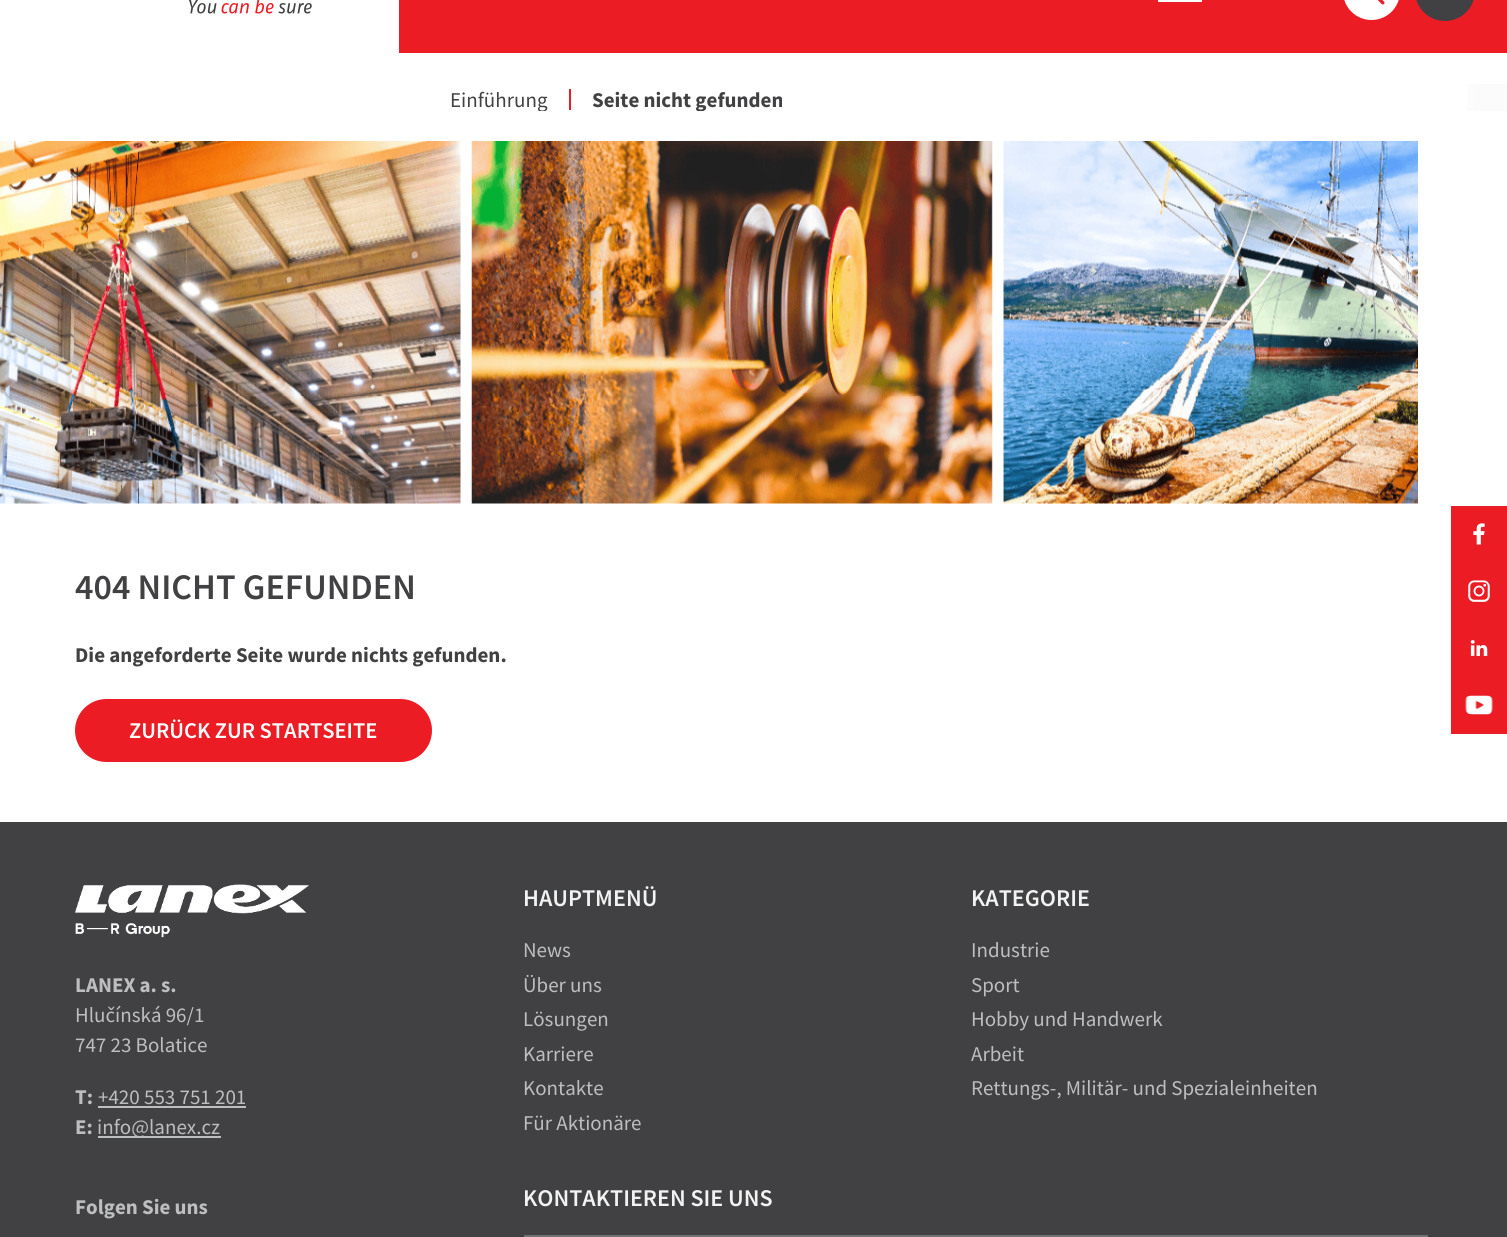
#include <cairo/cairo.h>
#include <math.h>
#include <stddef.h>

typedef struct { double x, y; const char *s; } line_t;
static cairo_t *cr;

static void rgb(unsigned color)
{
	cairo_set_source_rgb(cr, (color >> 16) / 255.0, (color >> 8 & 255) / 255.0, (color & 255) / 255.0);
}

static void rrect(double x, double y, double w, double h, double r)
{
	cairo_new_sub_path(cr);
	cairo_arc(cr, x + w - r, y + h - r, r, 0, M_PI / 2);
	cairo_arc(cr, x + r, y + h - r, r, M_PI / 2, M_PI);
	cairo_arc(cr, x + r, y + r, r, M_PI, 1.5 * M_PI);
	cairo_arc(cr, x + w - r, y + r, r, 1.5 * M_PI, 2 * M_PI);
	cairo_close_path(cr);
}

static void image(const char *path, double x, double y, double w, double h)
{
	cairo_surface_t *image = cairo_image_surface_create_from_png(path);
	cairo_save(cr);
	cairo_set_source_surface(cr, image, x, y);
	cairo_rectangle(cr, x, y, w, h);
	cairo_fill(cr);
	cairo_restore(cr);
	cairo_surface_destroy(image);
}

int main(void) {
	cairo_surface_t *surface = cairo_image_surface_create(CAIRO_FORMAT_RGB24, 1507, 1237);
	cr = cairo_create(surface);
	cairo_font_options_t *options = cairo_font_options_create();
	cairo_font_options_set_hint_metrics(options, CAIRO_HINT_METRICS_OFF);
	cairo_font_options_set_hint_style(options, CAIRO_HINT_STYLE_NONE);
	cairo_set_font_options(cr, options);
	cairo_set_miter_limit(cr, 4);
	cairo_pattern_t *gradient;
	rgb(0xffffff);
	cairo_paint(cr);
	rgb(0xec1c24);
	cairo_rectangle(cr, 399, 0, 1108, 53);
	cairo_fill(cr);
	image("img/1.png", 189, 0, 123, 14);
	rgb(0xffffff);
	cairo_rectangle(cr, 1158, 0, 44, 2);
	cairo_fill(cr);
	rrect(1343, -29, 57, 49, 28.5);
	cairo_fill(cr);
	image("img/2.png", 1377, 0, 8, 5);
	rgb(0x414042);
	rrect(1416, -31, 58, 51, 29);
	cairo_fill_preserve(cr);
	cairo_stroke(cr);
	rgb(0xec1c24);
	cairo_rectangle(cr, 569, 89, 2, 21);
	cairo_fill(cr);
	gradient = cairo_pattern_create_linear(1448, 98, 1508, 98);
	cairo_pattern_add_color_stop_rgba(gradient, 0, 1, 1, 1, 1);
	cairo_pattern_add_color_stop_rgba(gradient, 0.5, 0.984, 0.984, 0.984, 1);
	cairo_set_source(cr, gradient);
	cairo_pattern_destroy(gradient);
	cairo_rectangle(cr, 1467, 84, 40, 27);
	cairo_fill(cr);
	image("img/3.png", 0, 141, 1418, 363);
	rgb(0xec1c24);
	rrect(76, 700, 355, 61, 30.5);
	cairo_fill_preserve(cr);
	cairo_stroke(cr);
	cairo_rectangle(cr, 1451, 506, 56, 228);
	cairo_fill(cr);
	image("img/4.png", 1473, 523, 12, 22);
	image("img/5.png", 1468, 580, 22, 22);
	image("img/6.png", 1470, 640, 18, 16);
	image("img/7.png", 1465, 695, 28, 20);
	rgb(0x414042);
	cairo_rectangle(cr, 0, 822, 1507, 415);
	cairo_fill(cr);
	image("img/8.png", 75, 884, 234, 54);
	rgb(0xbcbec0);
	cairo_rectangle(cr, 98, 1106, 148, 2);
	cairo_fill(cr);
	cairo_rectangle(cr, 98, 1136, 123, 2);
	cairo_fill(cr);
	cairo_rectangle(cr, 525, 1236, 902, 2);
	rgb(0x717171);
	cairo_stroke(cr);
	cairo_save(cr);
	cairo_rectangle(cr, 450, 84, 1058, 27);
	cairo_clip(cr);
	cairo_select_font_face(cr, "Source Sans Pro", CAIRO_FONT_SLANT_NORMAL, CAIRO_FONT_WEIGHT_NORMAL);
	cairo_set_font_size(cr, 21);
	rgb(0x414042);
	cairo_move_to(cr, 450, 107);
	cairo_show_text(cr, "Einführung");
	cairo_select_font_face(cr, "Source Sans Pro", CAIRO_FONT_SLANT_NORMAL, CAIRO_FONT_WEIGHT_BOLD);
	cairo_move_to(cr, 592, 107);
	cairo_show_text(cr, "Seite nicht gefunden");
	cairo_restore(cr);
	cairo_select_font_face(cr, "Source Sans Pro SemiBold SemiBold", CAIRO_FONT_SLANT_NORMAL, CAIRO_FONT_WEIGHT_NORMAL);
	cairo_set_font_size(cr, 36);
	rgb(0x414042);
	cairo_move_to(cr, 75, 599);
	cairo_show_text(cr, "404 NICHT GEFUNDEN");
	cairo_select_font_face(cr, "Source Sans Pro", CAIRO_FONT_SLANT_NORMAL, CAIRO_FONT_WEIGHT_BOLD);
	cairo_set_font_size(cr, 21);
	cairo_move_to(cr, 75, 662);
	cairo_show_text(cr, "Die angeforderte Seite wurde nichts gefunden.");
	cairo_select_font_face(cr, "Source Sans Pro SemiBold SemiBold", CAIRO_FONT_SLANT_NORMAL, CAIRO_FONT_WEIGHT_NORMAL);
	cairo_set_font_size(cr, 22.5);
	rgb(0xffffff);
	cairo_move_to(cr, 129, 738);
	cairo_show_text(cr, "ZURÜCK ZUR STARTSEITE");
	cairo_select_font_face(cr, "Source Sans Pro", CAIRO_FONT_SLANT_NORMAL, CAIRO_FONT_WEIGHT_BOLD);
	cairo_set_font_size(cr, 21);
	rgb(0xbcbec0);
	cairo_move_to(cr, 75, 992);
	cairo_show_text(cr, "LANEX a. s.");
	cairo_select_font_face(cr, "Source Sans Pro", CAIRO_FONT_SLANT_NORMAL, CAIRO_FONT_WEIGHT_NORMAL);
	cairo_move_to(cr, 75, 1022);
	cairo_show_text(cr, "Hlučínská 96/1");
	cairo_move_to(cr, 75, 1052);
	cairo_show_text(cr, "747 23 Bolatice");
	cairo_select_font_face(cr, "Source Sans Pro", CAIRO_FONT_SLANT_NORMAL, CAIRO_FONT_WEIGHT_BOLD);
	cairo_move_to(cr, 75, 1104);
	cairo_show_text(cr, "T:");
	cairo_select_font_face(cr, "Source Sans Pro", CAIRO_FONT_SLANT_NORMAL, CAIRO_FONT_WEIGHT_NORMAL);
	cairo_move_to(cr, 98, 1104);
	cairo_show_text(cr, "+420 553 751 201");
	cairo_select_font_face(cr, "Source Sans Pro", CAIRO_FONT_SLANT_NORMAL, CAIRO_FONT_WEIGHT_BOLD);
	cairo_move_to(cr, 75, 1134);
	cairo_show_text(cr, "E:");
	cairo_select_font_face(cr, "Source Sans Pro", CAIRO_FONT_SLANT_NORMAL, CAIRO_FONT_WEIGHT_NORMAL);
	cairo_move_to(cr, 97, 1134);
	cairo_show_text(cr, "info@lanex.cz");
	cairo_select_font_face(cr, "Source Sans Pro", CAIRO_FONT_SLANT_NORMAL, CAIRO_FONT_WEIGHT_BOLD);
	cairo_move_to(cr, 75, 1214);
	cairo_show_text(cr, "Folgen Sie uns");
	cairo_select_font_face(cr, "Source Sans Pro SemiBold SemiBold", CAIRO_FONT_SLANT_NORMAL, CAIRO_FONT_WEIGHT_NORMAL);
	cairo_set_font_size(cr, 24);
	rgb(0xf1f2f2);
	cairo_move_to(cr, 523, 906);
	cairo_show_text(cr, "HAUPTMENÜ");
	cairo_select_font_face(cr, "Source Sans Pro", CAIRO_FONT_SLANT_NORMAL, CAIRO_FONT_WEIGHT_NORMAL);
	cairo_set_font_size(cr, 21);
	rgb(0xbcbec0);
	{
		static const line_t items[] = {
			{523, 957, "News"},
			{523, 992, "Über uns"},
			{523, 1026, "Lösungen"},
			{523, 1061, "Karriere"},
			{523, 1095, "Kontakte"},
			{523, 1130, "Für Aktionäre"},
		};
		for (size_t i = 0; i < sizeof items / sizeof *items; i++) {
			cairo_move_to(cr, items[i].x, items[i].y);
			cairo_show_text(cr, items[i].s);
		}
	}
	cairo_select_font_face(cr, "Source Sans Pro SemiBold SemiBold", CAIRO_FONT_SLANT_NORMAL, CAIRO_FONT_WEIGHT_NORMAL);
	cairo_set_font_size(cr, 24);
	rgb(0xf1f2f2);
	cairo_move_to(cr, 971, 906);
	cairo_show_text(cr, "KATEGORIE");
	cairo_select_font_face(cr, "Source Sans Pro", CAIRO_FONT_SLANT_NORMAL, CAIRO_FONT_WEIGHT_NORMAL);
	cairo_set_font_size(cr, 21);
	rgb(0xbcbec0);
	{
		static const line_t items[] = {
			{971, 957, "Industrie"},
			{971, 992, "Sport"},
			{971, 1026, "Hobby und Handwerk"},
			{971, 1061, "Arbeit"},
			{971, 1095, "Rettungs-, Militär- und Spezialeinheiten"},
		};
		for (size_t i = 0; i < sizeof items / sizeof *items; i++) {
			cairo_move_to(cr, items[i].x, items[i].y);
			cairo_show_text(cr, items[i].s);
		}
	}
	cairo_select_font_face(cr, "Source Sans Pro SemiBold SemiBold", CAIRO_FONT_SLANT_NORMAL, CAIRO_FONT_WEIGHT_NORMAL);
	cairo_set_font_size(cr, 24);
	rgb(0xf1f2f2);
	cairo_move_to(cr, 523, 1206);
	cairo_show_text(cr, "KONTAKTIEREN SIE UNS");
	cairo_surface_write_to_png(surface, "page.png");
	cairo_font_options_destroy(options);
	cairo_destroy(cr);
	cairo_surface_destroy(surface);
	return 0;
}
